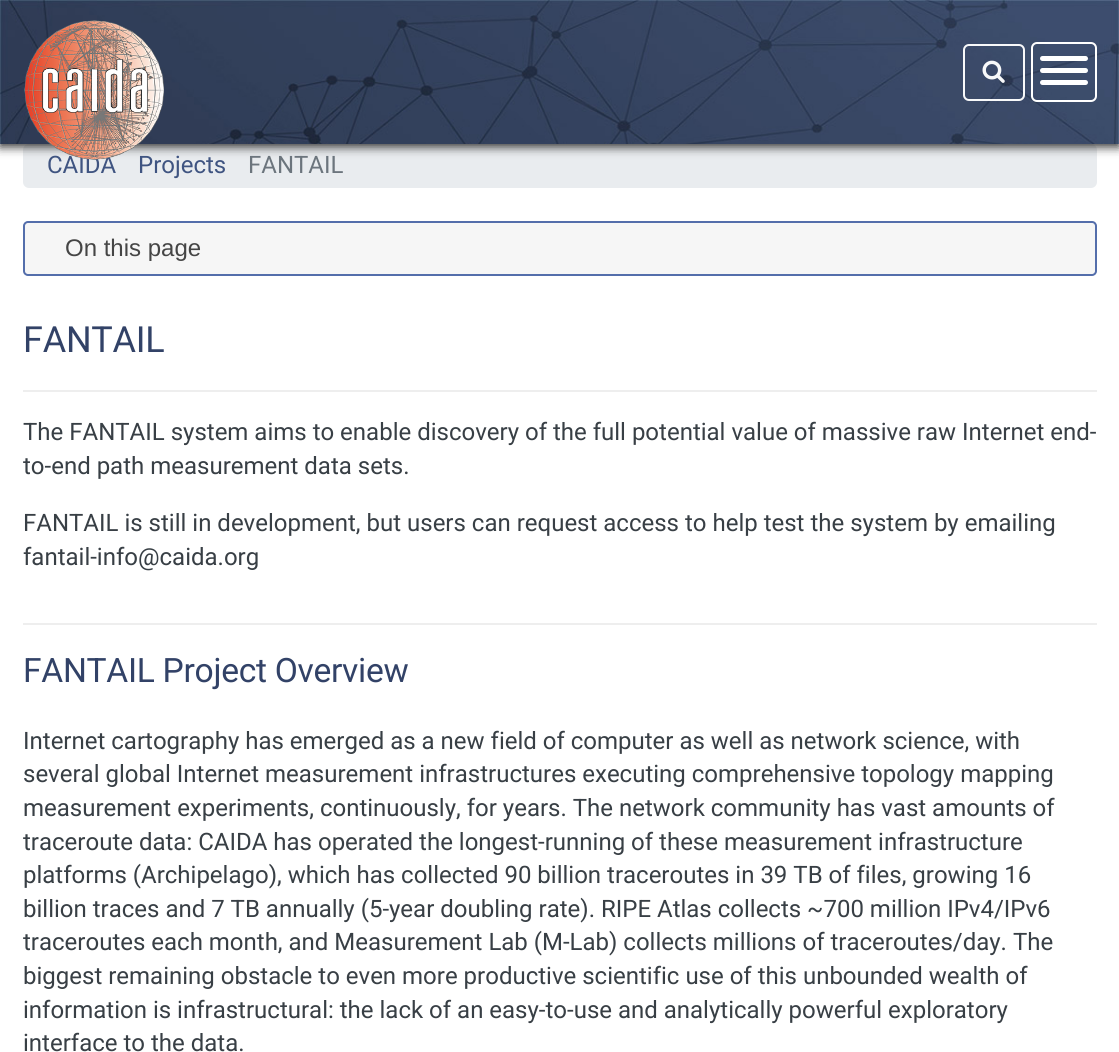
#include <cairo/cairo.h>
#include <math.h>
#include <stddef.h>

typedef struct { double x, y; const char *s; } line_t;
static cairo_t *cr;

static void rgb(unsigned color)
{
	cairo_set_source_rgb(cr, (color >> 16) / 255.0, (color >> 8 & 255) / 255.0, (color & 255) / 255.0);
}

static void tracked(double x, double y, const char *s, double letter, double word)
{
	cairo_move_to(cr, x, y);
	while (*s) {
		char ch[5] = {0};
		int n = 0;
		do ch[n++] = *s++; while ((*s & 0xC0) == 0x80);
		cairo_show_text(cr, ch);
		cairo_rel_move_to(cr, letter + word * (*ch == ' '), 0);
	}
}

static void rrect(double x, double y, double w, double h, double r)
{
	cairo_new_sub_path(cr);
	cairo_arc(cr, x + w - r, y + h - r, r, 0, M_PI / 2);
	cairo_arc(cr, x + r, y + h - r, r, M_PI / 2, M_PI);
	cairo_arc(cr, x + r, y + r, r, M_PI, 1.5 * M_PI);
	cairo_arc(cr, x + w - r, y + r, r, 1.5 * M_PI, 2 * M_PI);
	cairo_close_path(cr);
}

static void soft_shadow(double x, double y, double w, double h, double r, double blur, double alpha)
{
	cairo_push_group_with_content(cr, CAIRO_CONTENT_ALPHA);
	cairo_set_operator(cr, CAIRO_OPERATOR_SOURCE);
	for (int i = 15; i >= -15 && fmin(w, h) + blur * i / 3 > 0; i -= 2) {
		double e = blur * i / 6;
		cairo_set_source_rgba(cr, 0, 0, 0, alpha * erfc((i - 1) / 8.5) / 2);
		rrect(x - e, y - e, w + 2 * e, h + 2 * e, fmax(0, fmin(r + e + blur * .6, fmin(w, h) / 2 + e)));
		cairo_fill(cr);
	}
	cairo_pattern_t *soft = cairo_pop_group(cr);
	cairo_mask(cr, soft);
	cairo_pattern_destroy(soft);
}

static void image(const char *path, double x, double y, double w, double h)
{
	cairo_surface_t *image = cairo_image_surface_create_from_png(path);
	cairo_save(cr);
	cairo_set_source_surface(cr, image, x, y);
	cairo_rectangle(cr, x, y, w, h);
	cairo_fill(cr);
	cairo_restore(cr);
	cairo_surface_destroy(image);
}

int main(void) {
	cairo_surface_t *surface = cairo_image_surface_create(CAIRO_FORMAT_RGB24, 1119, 1052);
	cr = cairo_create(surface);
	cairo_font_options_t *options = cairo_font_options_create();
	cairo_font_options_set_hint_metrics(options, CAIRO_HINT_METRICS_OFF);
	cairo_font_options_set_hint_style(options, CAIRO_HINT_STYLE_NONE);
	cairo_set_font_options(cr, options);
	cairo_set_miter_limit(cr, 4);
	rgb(0xffffff);
	cairo_paint(cr);
	rgb(0xe9ecef);
	rrect(23, 144, 1074, 44, 6);
	cairo_fill(cr);
	rgb(0x333333);
	soft_shadow(0, 3, 1119, 144, 0, 5, 1);
	image("img/1.png", 0, 0, 1119, 144);
	rrect(964, 45, 60, 55, 5);
	rgb(0xf8f9fa);
	cairo_stroke(cr);
	image("img/3.png", 982, 60, 23, 23);
	rrect(1032, 43, 64, 58, 5);
	rgb(0xffffff);
	cairo_stroke(cr);
	rrect(1040, 68, 48, 5, 2.5);
	cairo_fill(cr);
	rrect(1040, 56, 48, 5, 2.5);
	cairo_fill(cr);
	rrect(1040, 80, 48, 5, 2.5);
	cairo_fill(cr);
	rgb(0xf6f6f6);
	rrect(24, 222, 1072, 53, 4);
	cairo_fill_preserve(cr);
	rgb(0x546eab);
	cairo_stroke(cr);
	rgb(0xeeeeee);
	cairo_rectangle(cr, 23, 390, 1074, 2);
	cairo_fill(cr);
	cairo_rectangle(cr, 23, 623, 1074, 2);
	cairo_fill(cr);
	cairo_select_font_face(cr, "Roboto", CAIRO_FONT_SLANT_NORMAL, CAIRO_FONT_WEIGHT_NORMAL);
	cairo_set_font_size(cr, 24);
	rgb(0x3f5481);
	cairo_move_to(cr, 47, 173);
	cairo_show_text(cr, "CAIDA");
	cairo_move_to(cr, 138, 173);
	cairo_show_text(cr, "Projects");
	image("img/2.png", 24, 20, 140, 140);
	rgb(0x6c757d);
	cairo_move_to(cr, 248, 173);
	cairo_show_text(cr, "FANTAIL");
	cairo_select_font_face(cr, "Liberation Sans", CAIRO_FONT_SLANT_NORMAL, CAIRO_FONT_WEIGHT_NORMAL);
	rgb(0x454545);
	cairo_move_to(cr, 65, 256);
	cairo_show_text(cr, "On this page");
	cairo_select_font_face(cr, "Roboto", CAIRO_FONT_SLANT_NORMAL, CAIRO_FONT_WEIGHT_NORMAL);
	cairo_set_font_size(cr, 36);
	rgb(0x324267);
	tracked(23, 352, "FANTAIL", -0.25, 0);
	cairo_set_font_size(cr, 24);
	rgb(0x383f45);
	{
		static const line_t items[] = {
			{23, 440, "The FANTAIL system aims to enable discovery of the full potential value of massive raw Internet end-"},
			{23, 474, "to-end path measurement data sets."},
			{23, 531, "FANTAIL is still in development, but users can request access to help test the system by emailing"},
			{23, 565, "fantail-info@caida.org"},
		};
		for (size_t i = 0; i < sizeof items / sizeof *items; i++) {
			cairo_move_to(cr, items[i].x, items[i].y);
			cairo_show_text(cr, items[i].s);
		}
	}
	cairo_set_font_size(cr, 33.6);
	rgb(0x324267);
	tracked(23, 682, "FANTAIL Project Overview", -0.3, 0);
	cairo_set_font_size(cr, 24);
	rgb(0x383f45);
	{
		static const line_t items[] = {
			{23, 749, "Internet cartography has emerged as a new field of computer as well as network science, with"},
			{23, 782, "several global Internet measurement infrastructures executing comprehensive topology mapping"},
			{23, 816, "measurement experiments, continuously, for years. The network community has vast amounts of"},
			{23, 850, "traceroute data: CAIDA has operated the longest-running of these measurement infrastructure"},
			{23, 883, "platforms (Archipelago), which has collected 90 billion traceroutes in 39 TB of files, growing 16"},
			{23, 917, "billion traces and 7 TB annually (5-year doubling rate). RIPE Atlas collects ~700 million IPv4/IPv6"},
			{23, 950, "traceroutes each month, and Measurement Lab (M-Lab) collects millions of traceroutes/day. The"},
			{23, 984, "biggest remaining obstacle to even more productive scientific use of this unbounded wealth of"},
			{23, 1018, "information is infrastructural: the lack of an easy-to-use and analytically powerful exploratory"},
			{23, 1051, "interface to the data."},
		};
		for (size_t i = 0; i < sizeof items / sizeof *items; i++) {
			cairo_move_to(cr, items[i].x, items[i].y);
			cairo_show_text(cr, items[i].s);
		}
	}
	cairo_surface_write_to_png(surface, "page.png");
	cairo_font_options_destroy(options);
	cairo_destroy(cr);
	cairo_surface_destroy(surface);
	return 0;
}
